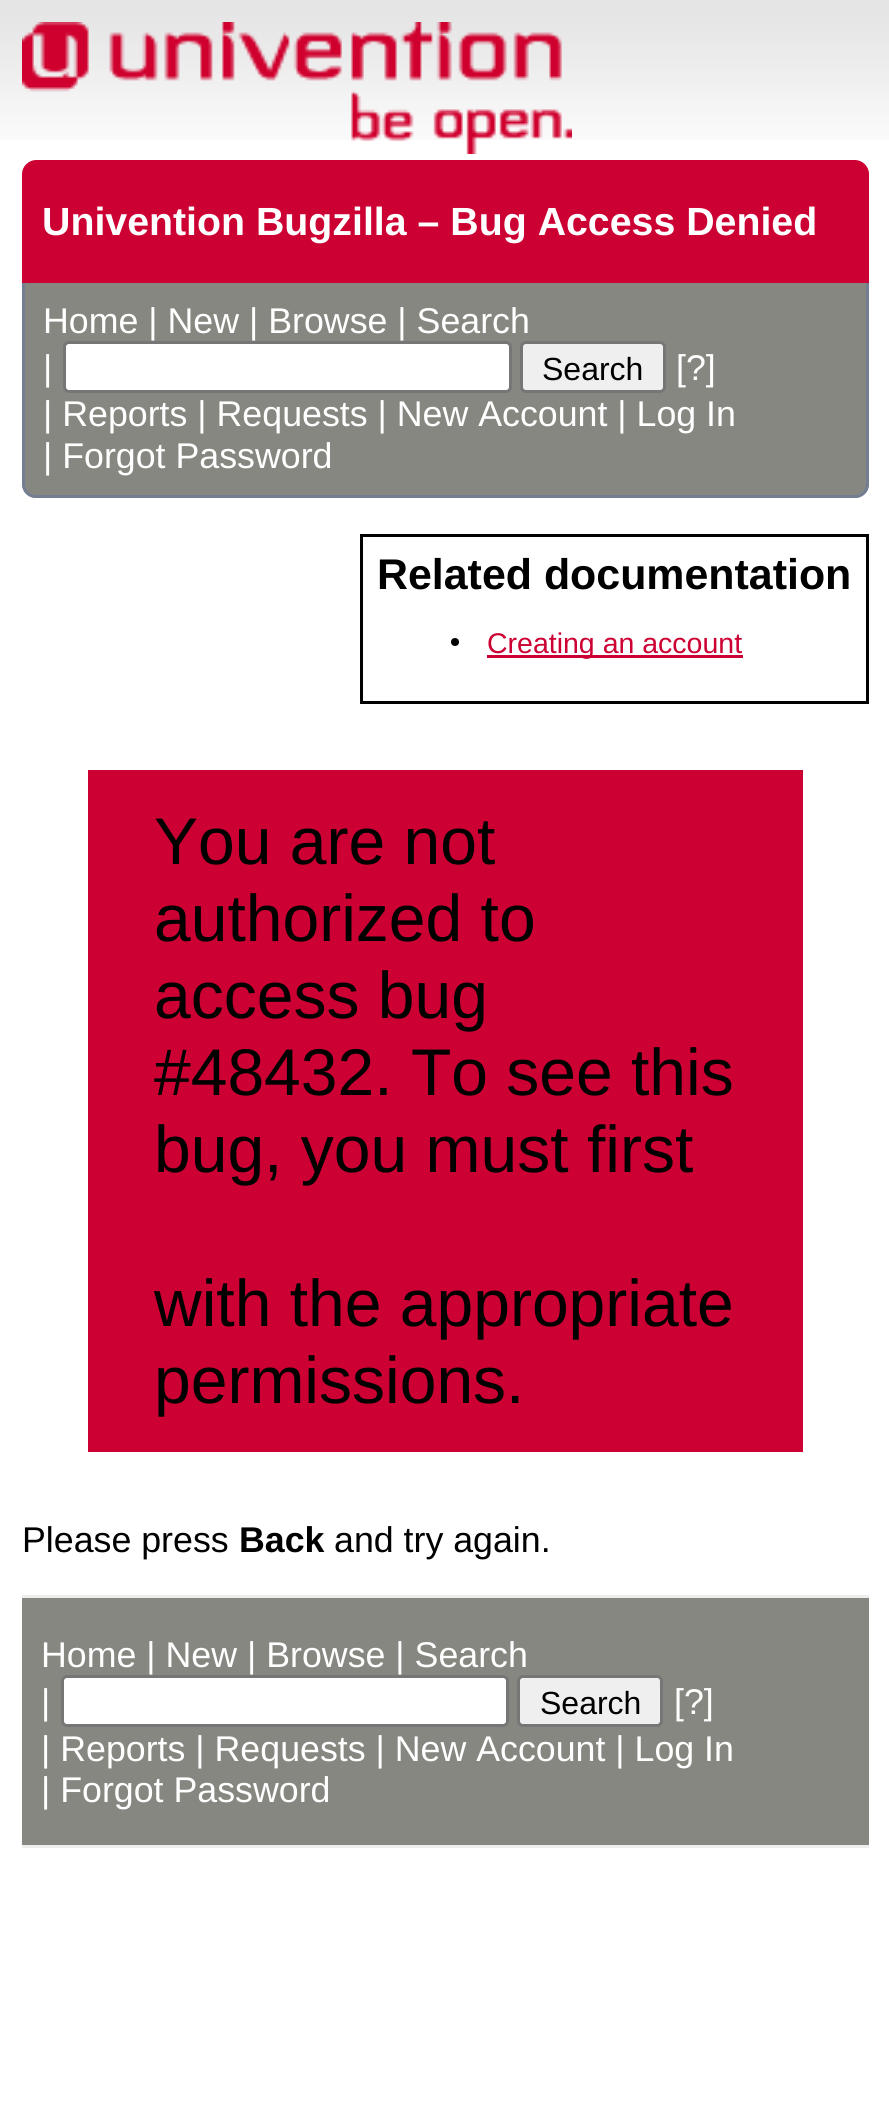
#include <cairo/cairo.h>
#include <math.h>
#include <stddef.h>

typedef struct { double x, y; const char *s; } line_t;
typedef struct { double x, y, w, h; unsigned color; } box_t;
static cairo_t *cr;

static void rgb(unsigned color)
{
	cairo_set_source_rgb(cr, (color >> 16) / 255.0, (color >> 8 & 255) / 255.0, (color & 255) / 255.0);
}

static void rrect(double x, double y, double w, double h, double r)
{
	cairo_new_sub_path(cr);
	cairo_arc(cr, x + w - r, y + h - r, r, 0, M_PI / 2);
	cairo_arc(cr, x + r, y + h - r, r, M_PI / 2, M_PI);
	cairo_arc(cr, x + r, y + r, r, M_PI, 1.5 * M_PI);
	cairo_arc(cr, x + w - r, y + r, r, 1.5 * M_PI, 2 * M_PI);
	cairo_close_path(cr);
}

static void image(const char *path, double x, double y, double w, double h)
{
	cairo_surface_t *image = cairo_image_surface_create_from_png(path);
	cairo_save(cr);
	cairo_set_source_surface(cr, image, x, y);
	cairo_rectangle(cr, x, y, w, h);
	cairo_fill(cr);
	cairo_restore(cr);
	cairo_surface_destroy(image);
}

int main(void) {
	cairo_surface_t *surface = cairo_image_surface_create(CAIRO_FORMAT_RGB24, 889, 2104);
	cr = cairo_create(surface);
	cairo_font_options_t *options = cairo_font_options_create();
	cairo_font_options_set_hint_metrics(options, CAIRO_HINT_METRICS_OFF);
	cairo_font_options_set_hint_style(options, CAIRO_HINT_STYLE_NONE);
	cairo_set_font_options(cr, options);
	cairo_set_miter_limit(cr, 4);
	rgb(0xffffff);
	cairo_paint(cr);
	image("img/1.png", 0, 0, 889, 140);
	image("img/2.png", 22, 22, 550, 132);
	rgb(0xcc0033);
	cairo_new_path(cr);
	cairo_move_to(cr, 36, 160);
	cairo_line_to(cr, 855, 160);
	cairo_curve_to(cr, 862.5, 160, 869, 166.5, 869, 174);
	cairo_line_to(cr, 869, 283);
	cairo_line_to(cr, 22, 283);
	cairo_line_to(cr, 22, 174);
	cairo_curve_to(cr, 22, 166.5, 28.5, 160, 36, 160);
	cairo_close_path(cr);
	cairo_fill(cr);
	rgb(0x878781);
	cairo_new_path(cr);
	cairo_move_to(cr, 22, 283);
	cairo_line_to(cr, 869, 283);
	cairo_line_to(cr, 869, 484);
	cairo_curve_to(cr, 869, 491.5, 862.5, 498, 855, 498);
	cairo_line_to(cr, 36, 498);
	cairo_curve_to(cr, 28.5, 498, 22, 491.5, 22, 484);
	cairo_close_path(cr);
	cairo_fill(cr);
	rgb(0x747e93);
	cairo_set_fill_rule(cr, CAIRO_FILL_RULE_EVEN_ODD);
	cairo_new_path(cr);
	cairo_move_to(cr, 22, 283);
	cairo_line_to(cr, 869, 283);
	cairo_line_to(cr, 869, 484);
	cairo_curve_to(cr, 869, 492, 863, 498, 855, 498);
	cairo_line_to(cr, 36, 498);
	cairo_curve_to(cr, 28, 498, 22, 492, 22, 484);
	cairo_close_path(cr);
	cairo_move_to(cr, 25, 283);
	cairo_line_to(cr, 866, 283);
	cairo_line_to(cr, 866, 484);
	cairo_curve_to(cr, 866, 490, 861, 495, 855, 495);
	cairo_line_to(cr, 36, 495);
	cairo_curve_to(cr, 30, 495, 25, 490, 25, 484);
	cairo_close_path(cr);
	cairo_fill(cr);
	rgb(0xffffff);
	rrect(64.5, 342.5, 446, 49, 4.5);
	cairo_fill_preserve(cr);
	rgb(0x767676);
	cairo_set_line_width(cr, 3);
	cairo_stroke(cr);
	rgb(0xefefef);
	rrect(521.5, 342.5, 143, 49, 4.5);
	cairo_fill_preserve(cr);
	rgb(0x767676);
	cairo_stroke(cr);
	cairo_rectangle(cr, 361.5, 535.5, 506, 167);
	rgb(0x000000);
	cairo_stroke(cr);
	cairo_arc(cr, 455, 642, 4, 0, 2 * M_PI);
	cairo_fill(cr);
	{
		static const box_t items[] = {
			{487, 655, 256, 3, 0xcc0033},
			{88, 770, 715, 682, 0xcc0033},
			{22, 1598, 847, 247, 0x878781},
			{22, 1595, 847, 3, 0xeeeeee},
			{22, 1845, 847, 3, 0xeeeeee},
		};
		for (size_t i = 0; i < sizeof items / sizeof *items; i++) {
			rgb(items[i].color);
			cairo_rectangle(cr, items[i].x, items[i].y, items[i].w, items[i].h);
			cairo_fill(cr);
		}
	}
	rgb(0xffffff);
	rrect(62.5, 1676.5, 445, 49, 4.5);
	cairo_fill_preserve(cr);
	rgb(0x767676);
	cairo_stroke(cr);
	rgb(0xefefef);
	rrect(518.5, 1676.5, 143, 49, 4.5);
	cairo_fill_preserve(cr);
	rgb(0x767676);
	cairo_stroke(cr);
	cairo_select_font_face(cr, "Liberation Sans", CAIRO_FONT_SLANT_NORMAL, CAIRO_FONT_WEIGHT_BOLD);
	cairo_set_font_size(cr, 39.3);
	rgb(0xffffff);
	cairo_move_to(cr, 42, 235);
	cairo_show_text(cr, "Univention Bugzilla – Bug Access Denied");
	cairo_select_font_face(cr, "Liberation Sans", CAIRO_FONT_SLANT_NORMAL, CAIRO_FONT_WEIGHT_NORMAL);
	cairo_set_font_size(cr, 35.75);
	cairo_move_to(cr, 43, 333);
	cairo_show_text(cr, "Home | New | Browse | Search");
	cairo_move_to(cr, 43, 380);
	cairo_show_text(cr, "|");
	cairo_set_font_size(cr, 32);
	rgb(0x000000);
	cairo_move_to(cr, 542, 380);
	cairo_show_text(cr, "Search");
	cairo_set_font_size(cr, 35.75);
	rgb(0xffffff);
	{
		static const line_t items[] = {
			{676, 380, "[?]"},
			{43, 426, "| Reports | Requests | New Account | Log In"},
			{43, 468, "| Forgot Password"},
		};
		for (size_t i = 0; i < sizeof items / sizeof *items; i++) {
			cairo_move_to(cr, items[i].x, items[i].y);
			cairo_show_text(cr, items[i].s);
		}
	}
	cairo_select_font_face(cr, "Liberation Sans", CAIRO_FONT_SLANT_NORMAL, CAIRO_FONT_WEIGHT_BOLD);
	cairo_set_font_size(cr, 42.9);
	rgb(0x000000);
	cairo_move_to(cr, 377, 589);
	cairo_show_text(cr, "Related documentation");
	cairo_select_font_face(cr, "Liberation Sans", CAIRO_FONT_SLANT_NORMAL, CAIRO_FONT_WEIGHT_NORMAL);
	cairo_set_font_size(cr, 28.5);
	rgb(0xcc0033);
	cairo_move_to(cr, 487, 653);
	cairo_show_text(cr, "Creating an account");
	cairo_set_font_size(cr, 66);
	rgb(0x000000);
	{
		static const line_t items[] = {
			{154, 864, "You are not"},
			{154, 941, "authorized to"},
			{154, 1018, "access bug"},
			{154, 1095, "#48432. To see this"},
			{154, 1172, "bug, you must first"},
			{154, 1326, "with the appropriate"},
			{154, 1403, "permissions."},
		};
		for (size_t i = 0; i < sizeof items / sizeof *items; i++) {
			cairo_move_to(cr, items[i].x, items[i].y);
			cairo_show_text(cr, items[i].s);
		}
	}
	cairo_set_font_size(cr, 35.75);
	cairo_move_to(cr, 22, 1552);
	cairo_show_text(cr, "Please press");
	cairo_select_font_face(cr, "Liberation Sans", CAIRO_FONT_SLANT_NORMAL, CAIRO_FONT_WEIGHT_BOLD);
	cairo_move_to(cr, 239, 1552);
	cairo_show_text(cr, "Back");
	cairo_select_font_face(cr, "Liberation Sans", CAIRO_FONT_SLANT_NORMAL, CAIRO_FONT_WEIGHT_NORMAL);
	cairo_move_to(cr, 334, 1552);
	cairo_show_text(cr, "and try again.");
	rgb(0xffffff);
	cairo_move_to(cr, 41, 1667);
	cairo_show_text(cr, "Home | New | Browse | Search");
	cairo_move_to(cr, 41, 1714);
	cairo_show_text(cr, "|");
	cairo_set_font_size(cr, 32);
	rgb(0x000000);
	cairo_move_to(cr, 540, 1714);
	cairo_show_text(cr, "Search");
	cairo_set_font_size(cr, 35.75);
	rgb(0xffffff);
	{
		static const line_t items[] = {
			{674, 1714, "[?]"},
			{41, 1761, "| Reports | Requests | New Account | Log In"},
			{41, 1802, "| Forgot Password"},
		};
		for (size_t i = 0; i < sizeof items / sizeof *items; i++) {
			cairo_move_to(cr, items[i].x, items[i].y);
			cairo_show_text(cr, items[i].s);
		}
	}
	cairo_surface_write_to_png(surface, "page.png");
	cairo_font_options_destroy(options);
	cairo_destroy(cr);
	cairo_surface_destroy(surface);
	return 0;
}
